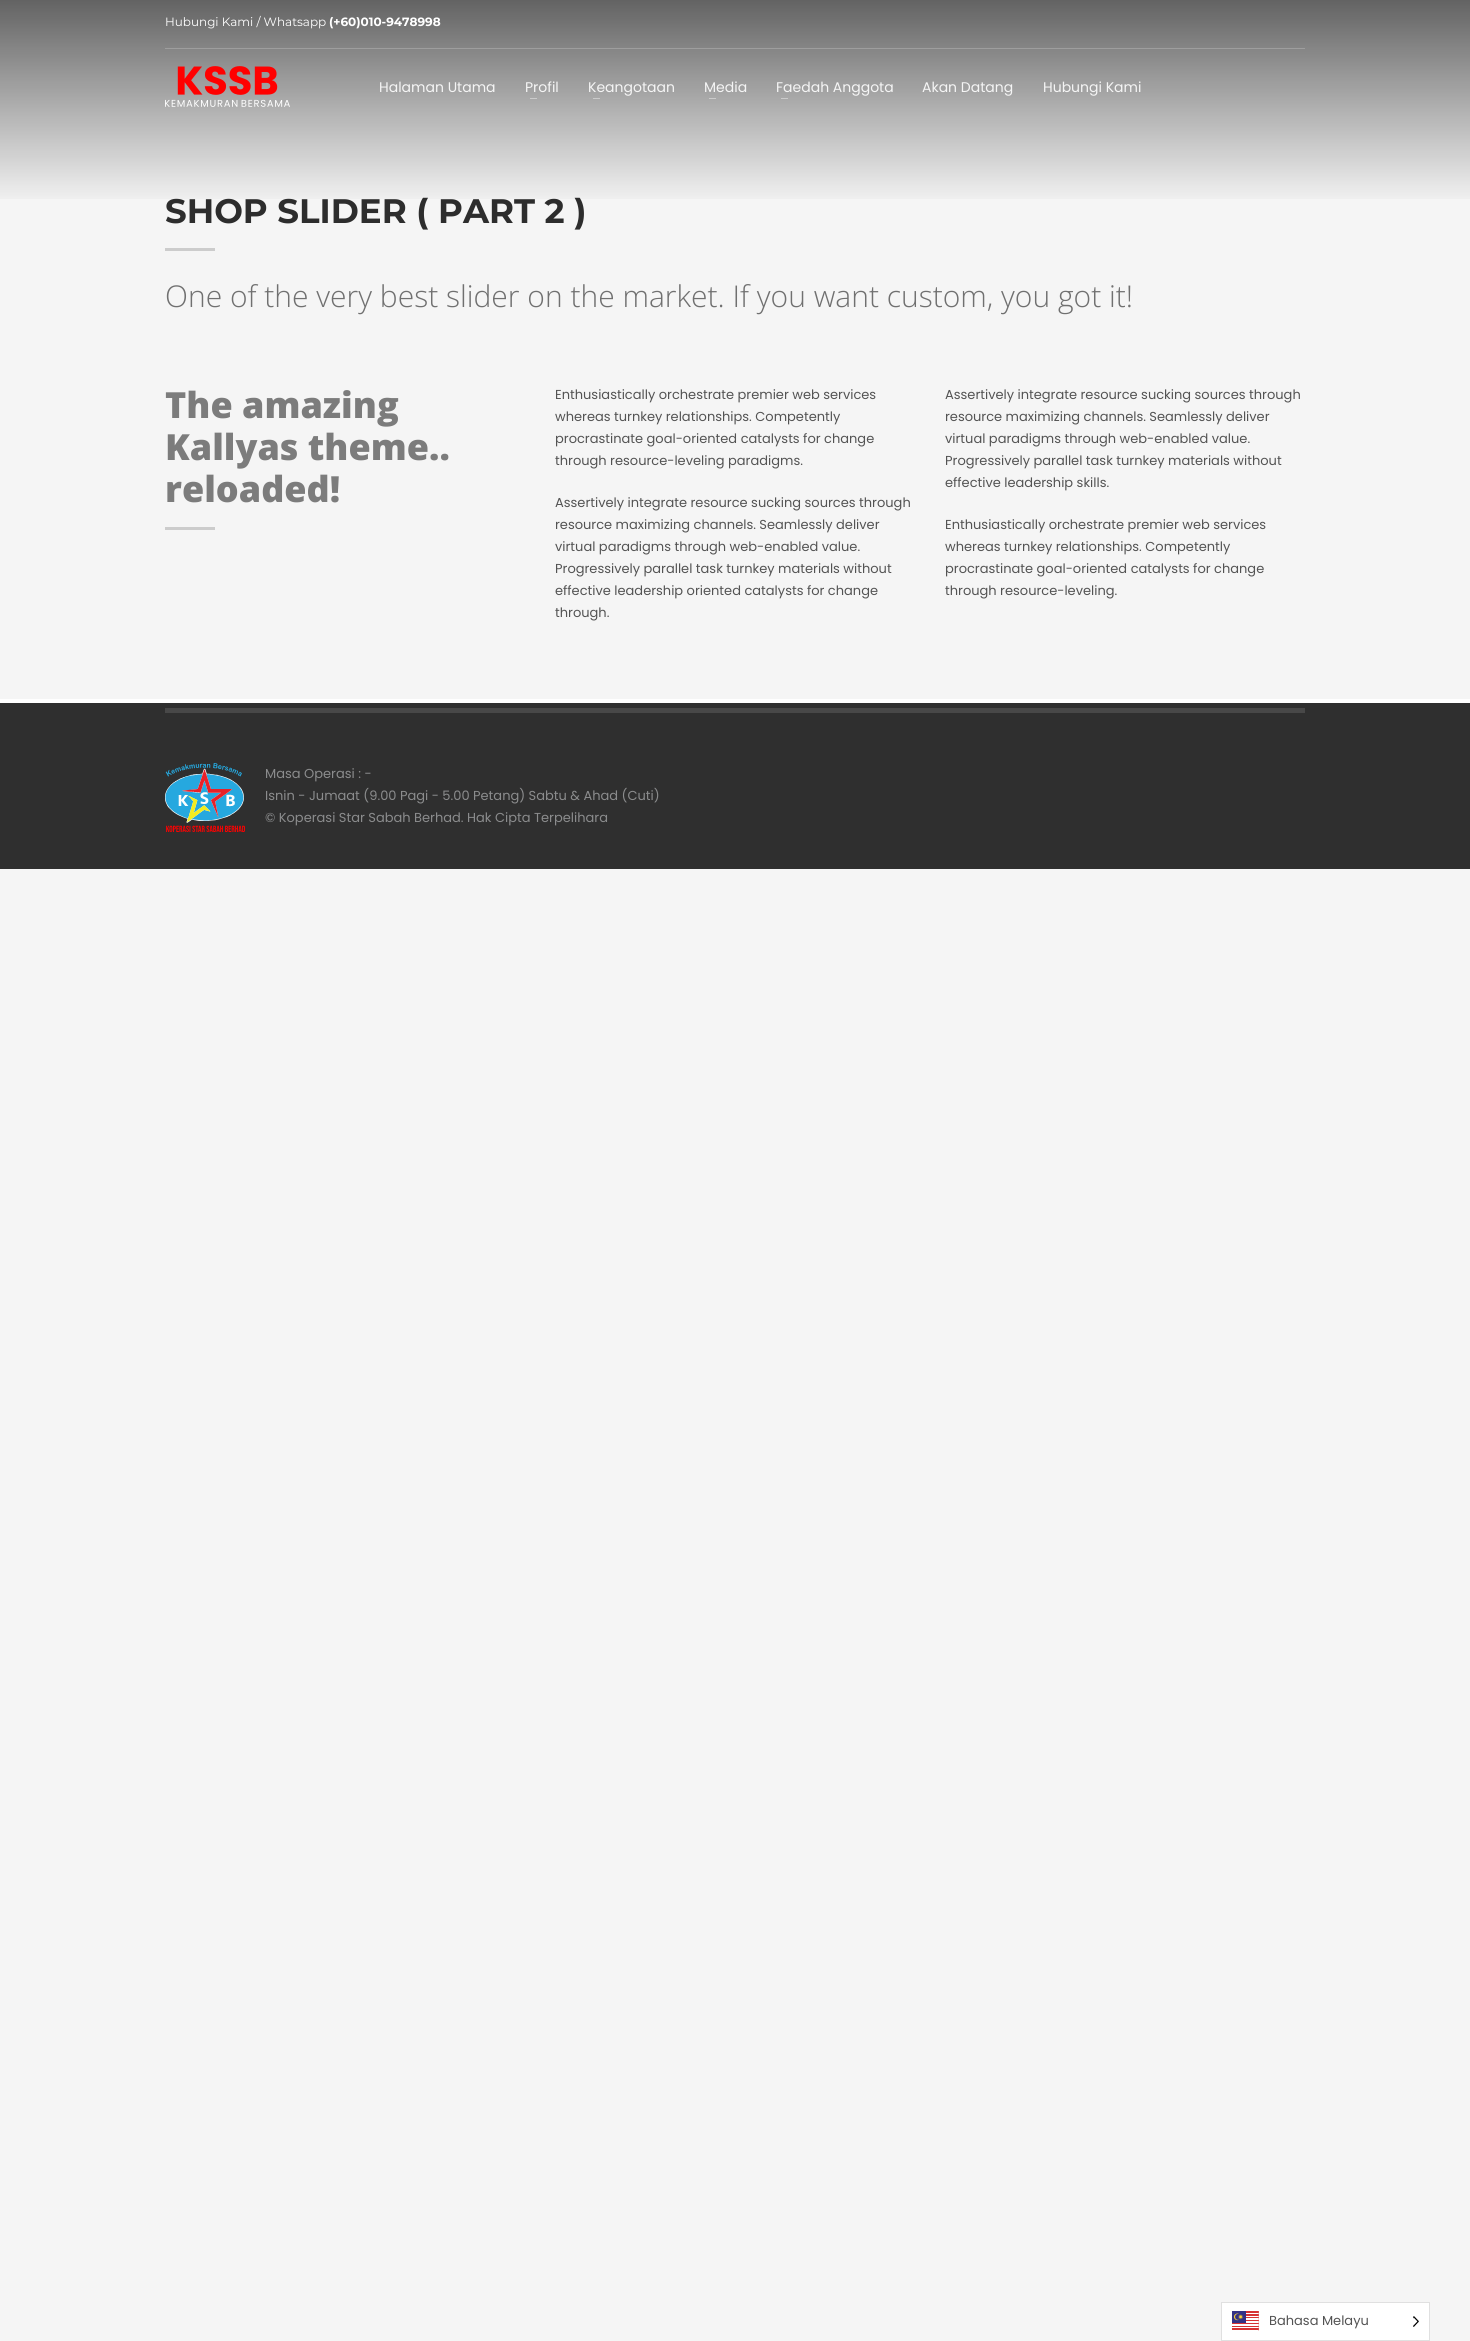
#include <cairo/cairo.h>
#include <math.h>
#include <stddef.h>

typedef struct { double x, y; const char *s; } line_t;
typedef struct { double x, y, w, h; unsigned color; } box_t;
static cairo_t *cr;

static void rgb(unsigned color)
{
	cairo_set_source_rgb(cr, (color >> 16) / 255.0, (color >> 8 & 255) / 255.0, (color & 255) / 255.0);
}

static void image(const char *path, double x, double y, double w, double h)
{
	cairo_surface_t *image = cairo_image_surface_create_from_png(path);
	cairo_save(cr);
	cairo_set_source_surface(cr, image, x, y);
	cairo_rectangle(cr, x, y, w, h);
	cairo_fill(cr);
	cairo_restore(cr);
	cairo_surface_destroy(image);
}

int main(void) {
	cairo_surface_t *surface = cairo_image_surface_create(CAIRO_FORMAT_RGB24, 1470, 2341);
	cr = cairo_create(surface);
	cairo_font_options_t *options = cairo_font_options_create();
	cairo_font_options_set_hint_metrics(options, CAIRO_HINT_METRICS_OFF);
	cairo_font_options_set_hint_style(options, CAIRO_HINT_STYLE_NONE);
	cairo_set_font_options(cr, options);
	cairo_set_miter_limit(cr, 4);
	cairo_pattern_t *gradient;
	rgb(0xf5f5f5);
	cairo_paint(cr);
	{
		static const box_t items[] = {
			{165, 248, 50, 3, 0xcccccc},
			{165, 527, 50, 3, 0xcccccc},
			{0, 703, 1470, 166, 0x2f2f2f},
			{0, 699, 1470, 4, 0xffffff},
			{165, 708, 1140, 5, 0x484848},
		};
		for (size_t i = 0; i < sizeof items / sizeof *items; i++) {
			rgb(items[i].color);
			cairo_rectangle(cr, items[i].x, items[i].y, items[i].w, items[i].h);
			cairo_fill(cr);
		}
	}
	image("img/2.png", 165, 763, 80, 69);
	rgb(0xffffff);
	cairo_rectangle(cr, 1221.5, 2302.5, 208, 38);
	cairo_fill_preserve(cr);
	rgb(0xe0e0e0);
	cairo_set_line_width(cr, 1);
	cairo_stroke(cr);
	image("img/3.png", 1232, 2311, 27, 20);
	image("img/4.png", 1413, 2316, 6, 11);
	cairo_select_font_face(cr, "Montserrat", CAIRO_FONT_SLANT_NORMAL, CAIRO_FONT_WEIGHT_BOLD);
	cairo_set_font_size(cr, 34);
	rgb(0x2d2d2d);
	cairo_move_to(cr, 165, 223);
	cairo_show_text(cr, "SHOP SLIDER ( PART 2 )");
	gradient = cairo_pattern_create_linear(735, -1, 735, 206);
	cairo_pattern_add_color_stop_rgba(gradient, 0, 0, 0, 0, 0.6);
	cairo_pattern_add_color_stop_rgba(gradient, 1, 0, 0, 0, 0);
	cairo_set_source(cr, gradient);
	cairo_pattern_destroy(gradient);
	cairo_rectangle(cr, 0, 0, 1470, 199);
	cairo_fill(cr);
	cairo_select_font_face(cr, "Poppins", CAIRO_FONT_SLANT_NORMAL, CAIRO_FONT_WEIGHT_NORMAL);
	cairo_set_font_size(cr, 14);
	rgb(0xf5f5f5);
	cairo_move_to(cr, 1043, 92);
	cairo_show_text(cr, "Hubungi Kami");
	cairo_move_to(cr, 922, 92);
	cairo_show_text(cr, "Akan Datang");
	rgb(0xcbcbcb);
	cairo_rectangle(cr, 781, 98, 7, 1);
	cairo_fill(cr);
	rgb(0xf5f5f5);
	cairo_move_to(cr, 776, 92);
	cairo_show_text(cr, "Faedah Anggota");
	rgb(0xcbcbcb);
	cairo_rectangle(cr, 709, 98, 7, 1);
	cairo_fill(cr);
	rgb(0xf5f5f5);
	cairo_move_to(cr, 704, 92);
	cairo_show_text(cr, "Media");
	rgb(0xcbcbcb);
	cairo_rectangle(cr, 593, 98, 7, 1);
	cairo_fill(cr);
	rgb(0xf5f5f5);
	cairo_move_to(cr, 588, 92);
	cairo_show_text(cr, "Keangotaan");
	rgb(0xcbcbcb);
	cairo_rectangle(cr, 530, 98, 7, 1);
	cairo_fill(cr);
	rgb(0xf5f5f5);
	cairo_move_to(cr, 525, 92);
	cairo_show_text(cr, "Profil");
	cairo_move_to(cr, 379, 92);
	cairo_show_text(cr, "Halaman Utama");
	image("img/1.png", 165, 66, 125, 41);
	rgb(0x9e9e9e);
	cairo_rectangle(cr, 165, 48, 1140, 1);
	cairo_fill(cr);
	cairo_select_font_face(cr, "Montserrat", CAIRO_FONT_SLANT_NORMAL, CAIRO_FONT_WEIGHT_BOLD);
	cairo_set_font_size(cr, 12);
	rgb(0xffffff);
	cairo_move_to(cr, 329, 26);
	cairo_show_text(cr, "(+60)010-9478998");
	cairo_select_font_face(cr, "Montserrat", CAIRO_FONT_SLANT_NORMAL, CAIRO_FONT_WEIGHT_NORMAL);
	cairo_move_to(cr, 165, 26);
	cairo_show_text(cr, "Hubungi Kami / Whatsapp");
	cairo_select_font_face(cr, "Open Sans Light", CAIRO_FONT_SLANT_NORMAL, CAIRO_FONT_WEIGHT_NORMAL);
	cairo_set_font_size(cr, 30);
	rgb(0x707070);
	cairo_move_to(cr, 165, 307);
	cairo_show_text(cr, "One of the very best slider on the market. If you want custom, you got it!");
	cairo_select_font_face(cr, "Open Sans ExtraBold", CAIRO_FONT_SLANT_NORMAL, CAIRO_FONT_WEIGHT_NORMAL);
	cairo_set_font_size(cr, 36);
	rgb(0x7c7c7c);
	{
		static const line_t items[] = {
			{165, 418, "The amazing"},
			{165, 460, "Kallyas theme.."},
			{165, 502, "reloaded!"},
		};
		for (size_t i = 0; i < sizeof items / sizeof *items; i++) {
			cairo_move_to(cr, items[i].x, items[i].y);
			cairo_show_text(cr, items[i].s);
		}
	}
	cairo_select_font_face(cr, "Poppins", CAIRO_FONT_SLANT_NORMAL, CAIRO_FONT_WEIGHT_NORMAL);
	cairo_set_font_size(cr, 13);
	rgb(0x535353);
	{
		static const line_t items[] = {
			{555, 399, "Enthusiastically orchestrate premier web services"},
			{555, 421, "whereas turnkey relationships. Competently"},
			{555, 443, "procrastinate goal-oriented catalysts for change"},
			{555, 465, "through resource-leveling paradigms."},
			{555, 507, "Assertively integrate resource sucking sources through"},
			{555, 529, "resource maximizing channels. Seamlessly deliver"},
			{555, 551, "virtual paradigms through web-enabled value."},
			{555, 573, "Progressively parallel task turnkey materials without"},
			{555, 595, "effective leadership oriented catalysts for change"},
			{555, 617, "through."},
			{945, 399, "Assertively integrate resource sucking sources through"},
			{945, 421, "resource maximizing channels. Seamlessly deliver"},
			{945, 443, "virtual paradigms through web-enabled value."},
			{945, 465, "Progressively parallel task turnkey materials without"},
			{945, 487, "effective leadership skills."},
			{945, 529, "Enthusiastically orchestrate premier web services"},
			{945, 551, "whereas turnkey relationships. Competently"},
			{945, 573, "procrastinate goal-oriented catalysts for change"},
			{945, 595, "through resource-leveling."},
		};
		for (size_t i = 0; i < sizeof items / sizeof *items; i++) {
			cairo_move_to(cr, items[i].x, items[i].y);
			cairo_show_text(cr, items[i].s);
		}
	}
	rgb(0x8b8c8d);
	{
		static const line_t items[] = {
			{265, 778, "Masa Operasi : -"},
			{265, 800, "Isnin - Jumaat (9.00 Pagi - 5.00 Petang) Sabtu & Ahad (Cuti)"},
			{265, 822, "© Koperasi Star Sabah Berhad. Hak Cipta Terpelihara"},
		};
		for (size_t i = 0; i < sizeof items / sizeof *items; i++) {
			cairo_move_to(cr, items[i].x, items[i].y);
			cairo_show_text(cr, items[i].s);
		}
	}
	rgb(0x535353);
	cairo_move_to(cr, 1269, 2325);
	cairo_show_text(cr, "Bahasa Melayu");
	cairo_surface_write_to_png(surface, "page.png");
	cairo_font_options_destroy(options);
	cairo_destroy(cr);
	cairo_surface_destroy(surface);
	return 0;
}
